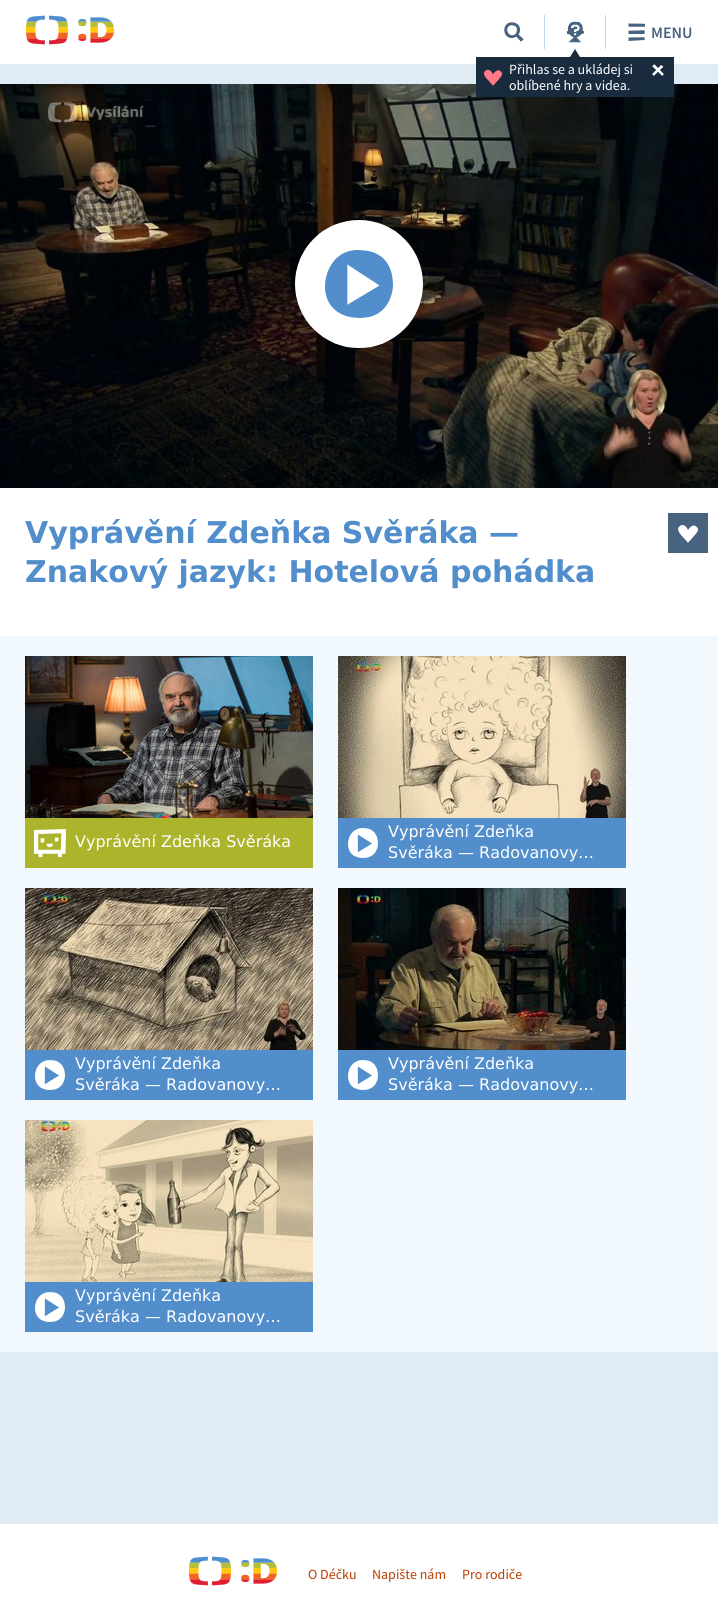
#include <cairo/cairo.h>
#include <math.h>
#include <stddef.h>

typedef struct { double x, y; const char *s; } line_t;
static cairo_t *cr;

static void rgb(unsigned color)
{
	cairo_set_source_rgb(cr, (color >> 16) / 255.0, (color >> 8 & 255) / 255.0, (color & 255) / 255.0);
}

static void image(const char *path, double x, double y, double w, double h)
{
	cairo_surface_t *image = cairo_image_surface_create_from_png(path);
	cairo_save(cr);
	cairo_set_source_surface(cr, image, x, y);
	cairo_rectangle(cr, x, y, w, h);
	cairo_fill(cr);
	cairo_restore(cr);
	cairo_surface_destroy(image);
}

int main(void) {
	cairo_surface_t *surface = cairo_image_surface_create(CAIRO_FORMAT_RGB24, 718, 1618);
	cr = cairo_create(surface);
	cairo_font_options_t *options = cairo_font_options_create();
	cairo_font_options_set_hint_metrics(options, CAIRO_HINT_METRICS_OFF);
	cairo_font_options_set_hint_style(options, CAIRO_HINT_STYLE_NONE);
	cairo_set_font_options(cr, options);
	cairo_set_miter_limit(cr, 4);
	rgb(0xe0ecf5);
	cairo_paint(cr);
	rgb(0xffffff);
	cairo_rectangle(cr, 0, 0, 718, 64);
	cairo_fill(cr);
	image("img/1.png", 25, 15, 90, 30);
	image("img/2.png", 504, 22, 20, 20);
	rgb(0xc3d7e6);
	cairo_rectangle(cr, 605, 15, 1, 34);
	cairo_fill(cr);
	image("img/3.png", 628, 23, 17, 18);
	cairo_rectangle(cr, 544, 15, 1, 34);
	cairo_fill(cr);
	image("img/4.png", 566, 21, 18, 22);
	image("img/7.png", 0, 84, 718, 404);
	rgb(0x192c3d);
	cairo_rectangle(cr, 476, 57, 198, 40);
	cairo_fill(cr);
	cairo_new_path(cr);
	cairo_move_to(cr, 580, 57);
	cairo_line_to(cr, 570, 57);
	cairo_line_to(cr, 575, 49);
	cairo_close_path(cr);
	cairo_fill(cr);
	image("img/5.png", 484, 69, 19, 17);
	image("img/6.png", 652, 64, 12, 12);
	image("img/8.png", 295, 220, 128, 128);
	rgb(0xffffff);
	cairo_rectangle(cr, 0, 488, 718, 148);
	cairo_fill(cr);
	rgb(0x486380);
	cairo_rectangle(cr, 668, 513, 40, 40);
	cairo_fill(cr);
	image("img/9.png", 678, 525, 20, 18);
	rgb(0xf1f8fe);
	cairo_rectangle(cr, 0, 636, 718, 716);
	cairo_fill(cr);
	image("img/10.png", 25, 656, 288, 162);
	rgb(0xabb42a);
	cairo_rectangle(cr, 25, 818, 288, 50);
	cairo_fill(cr);
	image("img/11.png", 34, 829, 32, 28);
	image("img/12.png", 338, 656, 288, 162);
	rgb(0x518ecb);
	cairo_rectangle(cr, 338, 818, 288, 50);
	cairo_fill(cr);
	image("img/13.png", 348, 828, 30, 30);
	image("img/14.png", 25, 888, 288, 162);
	cairo_rectangle(cr, 25, 1050, 288, 50);
	cairo_fill(cr);
	image("img/13.png", 35, 1060, 30, 30);
	image("img/15.png", 338, 888, 288, 162);
	cairo_rectangle(cr, 338, 1050, 288, 50);
	cairo_fill(cr);
	image("img/13.png", 348, 1060, 30, 30);
	image("img/16.png", 25, 1120, 288, 162);
	cairo_rectangle(cr, 25, 1282, 288, 50);
	cairo_fill(cr);
	image("img/13.png", 35, 1292, 30, 30);
	rgb(0xffffff);
	cairo_rectangle(cr, 0, 1524, 718, 94);
	cairo_fill(cr);
	image("img/1.png", 188, 1556, 90, 30);
	cairo_select_font_face(cr, "Source Sans Pro SemiBold", CAIRO_FONT_SLANT_NORMAL, CAIRO_FONT_WEIGHT_NORMAL);
	cairo_set_font_size(cr, 16);
	rgb(0x486380);
	cairo_move_to(cr, 651, 38);
	cairo_show_text(cr, "MENU");
	cairo_select_font_face(cr, "Source Sans Pro", CAIRO_FONT_SLANT_NORMAL, CAIRO_FONT_WEIGHT_NORMAL);
	cairo_set_font_size(cr, 14);
	rgb(0xffffff);
	cairo_move_to(cr, 509, 74);
	cairo_show_text(cr, "Přihlas se a ukládej si");
	cairo_move_to(cr, 509, 90);
	cairo_show_text(cr, "oblíbené hry a videa.");
	cairo_select_font_face(cr, "DejaVu Sans", CAIRO_FONT_SLANT_NORMAL, CAIRO_FONT_WEIGHT_BOLD);
	cairo_set_font_size(cr, 30);
	rgb(0x518ecb);
	cairo_move_to(cr, 25, 543);
	cairo_show_text(cr, "Vyprávění Zdeňka Svěráka —");
	cairo_move_to(cr, 25, 582);
	cairo_show_text(cr, "Znakový jazyk: Hotelová pohádka");
	cairo_select_font_face(cr, "DejaVu Sans", CAIRO_FONT_SLANT_NORMAL, CAIRO_FONT_WEIGHT_NORMAL);
	cairo_set_font_size(cr, 16);
	rgb(0xffffff);
	{
		static const line_t items[] = {
			{75, 847, "Vyprávění Zdeňka Svěráka"},
			{388, 837, "Vyprávění Zdeňka"},
			{388, 858, "Svěráka — Radovanovy…"},
			{75, 1069, "Vyprávění Zdeňka"},
			{75, 1090, "Svěráka — Radovanovy…"},
			{388, 1069, "Vyprávění Zdeňka"},
			{388, 1090, "Svěráka — Radovanovy…"},
			{75, 1301, "Vyprávění Zdeňka"},
			{75, 1322, "Svěráka — Radovanovy…"},
		};
		for (size_t i = 0; i < sizeof items / sizeof *items; i++) {
			cairo_move_to(cr, items[i].x, items[i].y);
			cairo_show_text(cr, items[i].s);
		}
	}
	cairo_select_font_face(cr, "Source Sans Pro", CAIRO_FONT_SLANT_NORMAL, CAIRO_FONT_WEIGHT_NORMAL);
	cairo_set_font_size(cr, 14);
	rgb(0xbd3d00);
	{
		static const line_t items[] = {
			{308, 1579, "O Déčku"},
			{372, 1579, "Napište nám"},
			{462, 1579, "Pro rodiče"},
		};
		for (size_t i = 0; i < sizeof items / sizeof *items; i++) {
			cairo_move_to(cr, items[i].x, items[i].y);
			cairo_show_text(cr, items[i].s);
		}
	}
	cairo_surface_write_to_png(surface, "page.png");
	cairo_font_options_destroy(options);
	cairo_destroy(cr);
	cairo_surface_destroy(surface);
	return 0;
}
